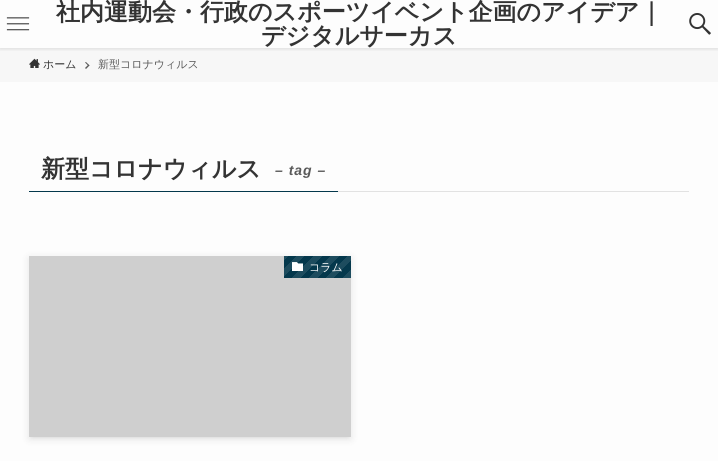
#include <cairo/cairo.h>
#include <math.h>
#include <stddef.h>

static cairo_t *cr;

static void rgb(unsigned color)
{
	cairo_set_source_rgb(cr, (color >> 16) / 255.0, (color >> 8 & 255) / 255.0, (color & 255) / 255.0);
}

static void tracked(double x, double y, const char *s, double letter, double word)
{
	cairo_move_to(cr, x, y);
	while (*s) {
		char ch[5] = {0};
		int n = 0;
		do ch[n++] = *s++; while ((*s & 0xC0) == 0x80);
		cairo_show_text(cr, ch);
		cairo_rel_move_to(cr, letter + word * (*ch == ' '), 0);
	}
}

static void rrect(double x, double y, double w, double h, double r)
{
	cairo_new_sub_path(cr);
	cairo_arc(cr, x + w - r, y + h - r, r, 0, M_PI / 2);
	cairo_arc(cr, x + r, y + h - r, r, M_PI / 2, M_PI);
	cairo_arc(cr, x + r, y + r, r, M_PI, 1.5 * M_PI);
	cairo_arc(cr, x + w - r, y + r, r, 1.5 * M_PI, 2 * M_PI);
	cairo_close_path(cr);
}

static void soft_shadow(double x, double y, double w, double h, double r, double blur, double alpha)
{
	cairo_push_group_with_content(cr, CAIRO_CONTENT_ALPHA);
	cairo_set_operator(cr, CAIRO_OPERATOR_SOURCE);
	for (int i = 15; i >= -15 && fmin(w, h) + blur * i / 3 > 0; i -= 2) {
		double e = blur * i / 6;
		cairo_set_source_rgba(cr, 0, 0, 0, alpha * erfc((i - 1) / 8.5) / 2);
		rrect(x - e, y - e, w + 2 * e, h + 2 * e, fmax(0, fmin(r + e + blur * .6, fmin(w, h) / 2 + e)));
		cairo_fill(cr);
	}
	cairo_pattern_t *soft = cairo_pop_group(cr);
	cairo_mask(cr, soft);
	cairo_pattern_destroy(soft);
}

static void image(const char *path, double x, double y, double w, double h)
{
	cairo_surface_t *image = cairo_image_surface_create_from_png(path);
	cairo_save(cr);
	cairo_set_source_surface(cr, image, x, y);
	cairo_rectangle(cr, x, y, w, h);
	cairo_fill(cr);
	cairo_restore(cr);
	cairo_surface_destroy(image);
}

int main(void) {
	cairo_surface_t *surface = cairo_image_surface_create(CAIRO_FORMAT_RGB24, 718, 461);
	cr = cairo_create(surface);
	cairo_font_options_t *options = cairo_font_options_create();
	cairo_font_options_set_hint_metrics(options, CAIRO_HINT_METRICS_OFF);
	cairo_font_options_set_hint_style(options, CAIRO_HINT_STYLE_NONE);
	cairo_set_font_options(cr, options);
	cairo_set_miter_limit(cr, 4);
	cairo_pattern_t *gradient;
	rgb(0xfdfdfd);
	cairo_paint(cr);
	rgb(0xf7f7f7);
	cairo_rectangle(cr, 0, 48, 718, 34);
	cairo_fill(cr);
	cairo_save(cr);
	cairo_rectangle(cr, 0, 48, 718, 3);
	cairo_clip(cr);
	rgb(0x000000);
	soft_shadow(0, 1, 718, 48, 0, 2, 0.12);
	cairo_restore(cr);
	image("img/1.png", 6, 17, 24, 14);
	image("img/2.png", 689, 13, 22, 22);
	image("img/3.png", 29, 58, 11, 10);
	rgb(0x5a5a5a);
	cairo_new_path(cr);
	cairo_move_to(cr, 86, 62);
	cairo_line_to(cr, 89.5, 65.5);
	cairo_line_to(cr, 88.5, 66);
	cairo_line_to(cr, 85, 62.5);
	cairo_close_path(cr);
	cairo_fill(cr);
	cairo_new_path(cr);
	cairo_move_to(cr, 88.5, 64.5);
	cairo_line_to(cr, 89.5, 65.5);
	cairo_line_to(cr, 86, 69);
	cairo_line_to(cr, 85, 68);
	cairo_close_path(cr);
	cairo_fill(cr);
	rgb(0xe2e2e2);
	cairo_rectangle(cr, 338, 191, 351, 1);
	cairo_fill(cr);
	rgb(0x04384c);
	cairo_rectangle(cr, 29, 191, 309, 1);
	cairo_fill(cr);
	rgb(0x000000);
	soft_shadow(33, 264, 314, 173, 0, 2, 0.1);
	soft_shadow(29, 258, 322, 181, 0, 4, 0.1);
	rgb(0xcfcfcf);
	cairo_rectangle(cr, 29, 256, 322, 181);
	cairo_fill(cr);
	gradient = cairo_pattern_create_linear(340, 289, 289, 238);
	cairo_pattern_add_color_stop_rgba(gradient, 0, 0.114, 0.298, 0.369, 1);
	cairo_pattern_add_color_stop_rgba(gradient, 0.08, 0.114, 0.298, 0.369, 1);
	cairo_pattern_add_color_stop_rgba(gradient, 0.08, 0.016, 0.22, 0.298, 1);
	cairo_pattern_add_color_stop_rgba(gradient, 0.17, 0.016, 0.22, 0.298, 1);
	cairo_pattern_add_color_stop_rgba(gradient, 0.17, 0.114, 0.298, 0.369, 1);
	cairo_pattern_add_color_stop_rgba(gradient, 0.25, 0.114, 0.298, 0.369, 1);
	cairo_pattern_add_color_stop_rgba(gradient, 0.25, 0.016, 0.22, 0.298, 1);
	cairo_pattern_add_color_stop_rgba(gradient, 0.33, 0.016, 0.22, 0.298, 1);
	cairo_pattern_add_color_stop_rgba(gradient, 0.33, 0.114, 0.298, 0.369, 1);
	cairo_pattern_add_color_stop_rgba(gradient, 0.42, 0.114, 0.298, 0.369, 1);
	cairo_pattern_add_color_stop_rgba(gradient, 0.42, 0.016, 0.22, 0.298, 1);
	cairo_pattern_add_color_stop_rgba(gradient, 0.5, 0.016, 0.22, 0.298, 1);
	cairo_pattern_add_color_stop_rgba(gradient, 0.5, 0.114, 0.298, 0.369, 1);
	cairo_pattern_add_color_stop_rgba(gradient, 0.58, 0.114, 0.298, 0.369, 1);
	cairo_pattern_add_color_stop_rgba(gradient, 0.58, 0.016, 0.22, 0.298, 1);
	cairo_pattern_add_color_stop_rgba(gradient, 0.67, 0.016, 0.22, 0.298, 1);
	cairo_pattern_add_color_stop_rgba(gradient, 0.67, 0.114, 0.298, 0.369, 1);
	cairo_pattern_add_color_stop_rgba(gradient, 0.75, 0.114, 0.298, 0.369, 1);
	cairo_pattern_add_color_stop_rgba(gradient, 0.75, 0.016, 0.22, 0.298, 1);
	cairo_pattern_add_color_stop_rgba(gradient, 0.83, 0.016, 0.22, 0.298, 1);
	cairo_pattern_add_color_stop_rgba(gradient, 0.83, 0.114, 0.298, 0.369, 1);
	cairo_pattern_add_color_stop_rgba(gradient, 0.92, 0.114, 0.298, 0.369, 1);
	cairo_pattern_add_color_stop_rgba(gradient, 0.92, 0.016, 0.22, 0.298, 1);
	cairo_pattern_add_color_stop_rgba(gradient, 1, 0.016, 0.22, 0.298, 1);
	cairo_set_source(cr, gradient);
	cairo_pattern_destroy(gradient);
	cairo_rectangle(cr, 284, 256, 67, 22);
	cairo_fill(cr);
	image("img/4.png", 292, 262, 11, 9);
	cairo_select_font_face(cr, "WenQuanYi Zen Hei", CAIRO_FONT_SLANT_NORMAL, CAIRO_FONT_WEIGHT_BOLD);
	cairo_set_font_size(cr, 24);
	rgb(0x333333);
	cairo_move_to(cr, 56, 20);
	cairo_show_text(cr, "社内運動会・行政のスポーツイベント企画のアイデア｜");
	cairo_move_to(cr, 261, 44);
	cairo_show_text(cr, "デジタルサーカス");
	cairo_select_font_face(cr, "WenQuanYi Zen Hei Medium", CAIRO_FONT_SLANT_NORMAL, CAIRO_FONT_WEIGHT_NORMAL);
	cairo_set_font_size(cr, 11);
	cairo_move_to(cr, 43, 68);
	cairo_show_text(cr, "ホーム");
	rgb(0x5a5a5a);
	cairo_move_to(cr, 98, 68);
	cairo_show_text(cr, "新型コロナウィルス");
	cairo_select_font_face(cr, "WenQuanYi Zen Hei", CAIRO_FONT_SLANT_NORMAL, CAIRO_FONT_WEIGHT_BOLD);
	cairo_set_font_size(cr, 24);
	rgb(0x333333);
	cairo_move_to(cr, 41, 177);
	cairo_show_text(cr, "新型コロナウィルス");
	cairo_select_font_face(cr, "Liberation Sans", CAIRO_FONT_SLANT_ITALIC, CAIRO_FONT_WEIGHT_BOLD);
	cairo_set_font_size(cr, 14);
	rgb(0x5a5a5a);
	tracked(275, 175, "– tag –", 1, 0);
	cairo_select_font_face(cr, "WenQuanYi Zen Hei Medium", CAIRO_FONT_SLANT_NORMAL, CAIRO_FONT_WEIGHT_NORMAL);
	cairo_set_font_size(cr, 11);
	rgb(0xffffff);
	cairo_move_to(cr, 309, 271);
	cairo_show_text(cr, "コラム");
	cairo_surface_write_to_png(surface, "page.png");
	cairo_font_options_destroy(options);
	cairo_destroy(cr);
	cairo_surface_destroy(surface);
	return 0;
}
